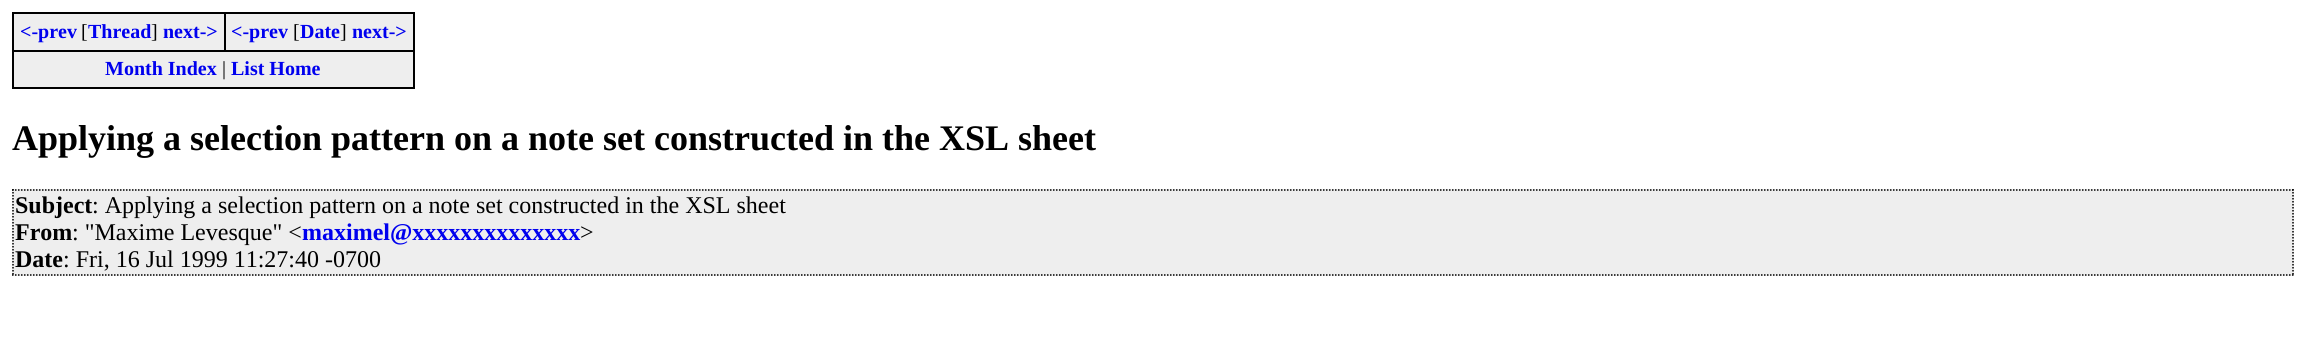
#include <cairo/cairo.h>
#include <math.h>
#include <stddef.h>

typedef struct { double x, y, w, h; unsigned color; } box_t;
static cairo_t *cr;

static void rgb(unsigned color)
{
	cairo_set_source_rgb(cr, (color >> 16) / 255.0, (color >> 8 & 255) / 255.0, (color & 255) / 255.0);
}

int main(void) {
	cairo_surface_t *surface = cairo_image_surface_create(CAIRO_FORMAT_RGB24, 2305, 338);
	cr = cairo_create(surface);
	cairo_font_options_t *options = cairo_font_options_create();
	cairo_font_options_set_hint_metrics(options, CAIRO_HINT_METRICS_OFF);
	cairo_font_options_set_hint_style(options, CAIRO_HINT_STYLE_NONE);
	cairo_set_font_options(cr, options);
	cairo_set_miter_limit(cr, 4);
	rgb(0xffffff);
	cairo_paint(cr);
	{
		static const box_t items[] = {
			{14, 14, 399, 73, 0xeeeeee},
			{12, 12, 402, 2, 0x000000},
			{413, 12, 2, 77, 0x000000},
			{12, 87, 402, 2, 0x000000},
			{12, 12, 2, 77, 0x000000},
			{12, 50, 402, 2, 0x000000},
			{224, 12, 2, 39, 0x000000},
			{12, 189, 2282, 87, 0xeeeeee},
		};
		for (size_t i = 0; i < sizeof items / sizeof *items; i++) {
			rgb(items[i].color);
			cairo_rectangle(cr, items[i].x, items[i].y, items[i].w, items[i].h);
			cairo_fill(cr);
		}
	}
	cairo_new_path(cr);
	cairo_move_to(cr, 12, 190);
	cairo_line_to(cr, 2293.5, 190);
	rgb(0x000000);
	cairo_set_line_width(cr, 1.5);
	cairo_set_dash(cr, (double[]){1.5, 1.5}, 2, 0);
	cairo_stroke(cr);
	cairo_new_path(cr);
	cairo_move_to(cr, 2293, 189);
	cairo_line_to(cr, 2293, 276);
	cairo_stroke(cr);
	cairo_new_path(cr);
	cairo_move_to(cr, 12, 275);
	cairo_line_to(cr, 2293.5, 275);
	cairo_stroke(cr);
	cairo_new_path(cr);
	cairo_move_to(cr, 13, 189);
	cairo_line_to(cr, 13, 276);
	cairo_stroke(cr);
	cairo_select_font_face(cr, "Liberation Serif", CAIRO_FONT_SLANT_NORMAL, CAIRO_FONT_WEIGHT_BOLD);
	cairo_set_font_size(cr, 20);
	rgb(0x0000ee);
	cairo_move_to(cr, 20, 38);
	cairo_show_text(cr, "<-prev");
	cairo_select_font_face(cr, "Liberation Serif", CAIRO_FONT_SLANT_NORMAL, CAIRO_FONT_WEIGHT_NORMAL);
	rgb(0x000000);
	cairo_move_to(cr, 81, 38);
	cairo_show_text(cr, "[");
	cairo_select_font_face(cr, "Liberation Serif", CAIRO_FONT_SLANT_NORMAL, CAIRO_FONT_WEIGHT_BOLD);
	rgb(0x0000ee);
	cairo_move_to(cr, 88, 38);
	cairo_show_text(cr, "Thread");
	cairo_select_font_face(cr, "Liberation Serif", CAIRO_FONT_SLANT_NORMAL, CAIRO_FONT_WEIGHT_NORMAL);
	rgb(0x000000);
	cairo_move_to(cr, 151, 38);
	cairo_show_text(cr, "]");
	cairo_select_font_face(cr, "Liberation Serif", CAIRO_FONT_SLANT_NORMAL, CAIRO_FONT_WEIGHT_BOLD);
	rgb(0x0000ee);
	cairo_move_to(cr, 163, 38);
	cairo_show_text(cr, "next->");
	cairo_move_to(cr, 231, 38);
	cairo_show_text(cr, "<-prev");
	cairo_select_font_face(cr, "Liberation Serif", CAIRO_FONT_SLANT_NORMAL, CAIRO_FONT_WEIGHT_NORMAL);
	rgb(0x000000);
	cairo_move_to(cr, 293, 38);
	cairo_show_text(cr, "[");
	cairo_select_font_face(cr, "Liberation Serif", CAIRO_FONT_SLANT_NORMAL, CAIRO_FONT_WEIGHT_BOLD);
	rgb(0x0000ee);
	cairo_move_to(cr, 300, 38);
	cairo_show_text(cr, "Date");
	cairo_select_font_face(cr, "Liberation Serif", CAIRO_FONT_SLANT_NORMAL, CAIRO_FONT_WEIGHT_NORMAL);
	rgb(0x000000);
	cairo_move_to(cr, 340, 38);
	cairo_show_text(cr, "]");
	cairo_select_font_face(cr, "Liberation Serif", CAIRO_FONT_SLANT_NORMAL, CAIRO_FONT_WEIGHT_BOLD);
	rgb(0x0000ee);
	cairo_move_to(cr, 352, 38);
	cairo_show_text(cr, "next->");
	cairo_move_to(cr, 105, 75);
	cairo_show_text(cr, "Month Index");
	cairo_select_font_face(cr, "Liberation Serif", CAIRO_FONT_SLANT_NORMAL, CAIRO_FONT_WEIGHT_NORMAL);
	rgb(0x000000);
	cairo_move_to(cr, 222, 75);
	cairo_show_text(cr, "|");
	cairo_select_font_face(cr, "Liberation Serif", CAIRO_FONT_SLANT_NORMAL, CAIRO_FONT_WEIGHT_BOLD);
	rgb(0x0000ee);
	cairo_move_to(cr, 231, 75);
	cairo_show_text(cr, "List Home");
	cairo_set_font_size(cr, 36);
	rgb(0x000000);
	cairo_move_to(cr, 12, 150);
	cairo_show_text(cr, "Applying a selection pattern on a note set constructed in the XSL sheet");
	cairo_set_font_size(cr, 24);
	cairo_move_to(cr, 15, 213);
	cairo_show_text(cr, "Subject");
	cairo_select_font_face(cr, "Liberation Serif", CAIRO_FONT_SLANT_NORMAL, CAIRO_FONT_WEIGHT_NORMAL);
	cairo_move_to(cr, 92, 213);
	cairo_show_text(cr, ": Applying a selection pattern on a note set constructed in the XSL sheet");
	cairo_select_font_face(cr, "Liberation Serif", CAIRO_FONT_SLANT_NORMAL, CAIRO_FONT_WEIGHT_BOLD);
	cairo_move_to(cr, 15, 240);
	cairo_show_text(cr, "From");
	cairo_select_font_face(cr, "Liberation Serif", CAIRO_FONT_SLANT_NORMAL, CAIRO_FONT_WEIGHT_NORMAL);
	cairo_move_to(cr, 72, 240);
	cairo_show_text(cr, ": \"Maxime Levesque\" <");
	cairo_select_font_face(cr, "Liberation Serif", CAIRO_FONT_SLANT_NORMAL, CAIRO_FONT_WEIGHT_BOLD);
	rgb(0x0000ee);
	cairo_move_to(cr, 302, 240);
	cairo_show_text(cr, "maximel@xxxxxxxxxxxxxx");
	cairo_select_font_face(cr, "Liberation Serif", CAIRO_FONT_SLANT_NORMAL, CAIRO_FONT_WEIGHT_NORMAL);
	rgb(0x000000);
	cairo_move_to(cr, 580, 240);
	cairo_show_text(cr, ">");
	cairo_select_font_face(cr, "Liberation Serif", CAIRO_FONT_SLANT_NORMAL, CAIRO_FONT_WEIGHT_BOLD);
	cairo_move_to(cr, 15, 267);
	cairo_show_text(cr, "Date");
	cairo_select_font_face(cr, "Liberation Serif", CAIRO_FONT_SLANT_NORMAL, CAIRO_FONT_WEIGHT_NORMAL);
	cairo_move_to(cr, 63, 267);
	cairo_show_text(cr, ": Fri, 16 Jul 1999 11:27:40 -0700");
	cairo_surface_write_to_png(surface, "page.png");
	cairo_font_options_destroy(options);
	cairo_destroy(cr);
	cairo_surface_destroy(surface);
	return 0;
}
